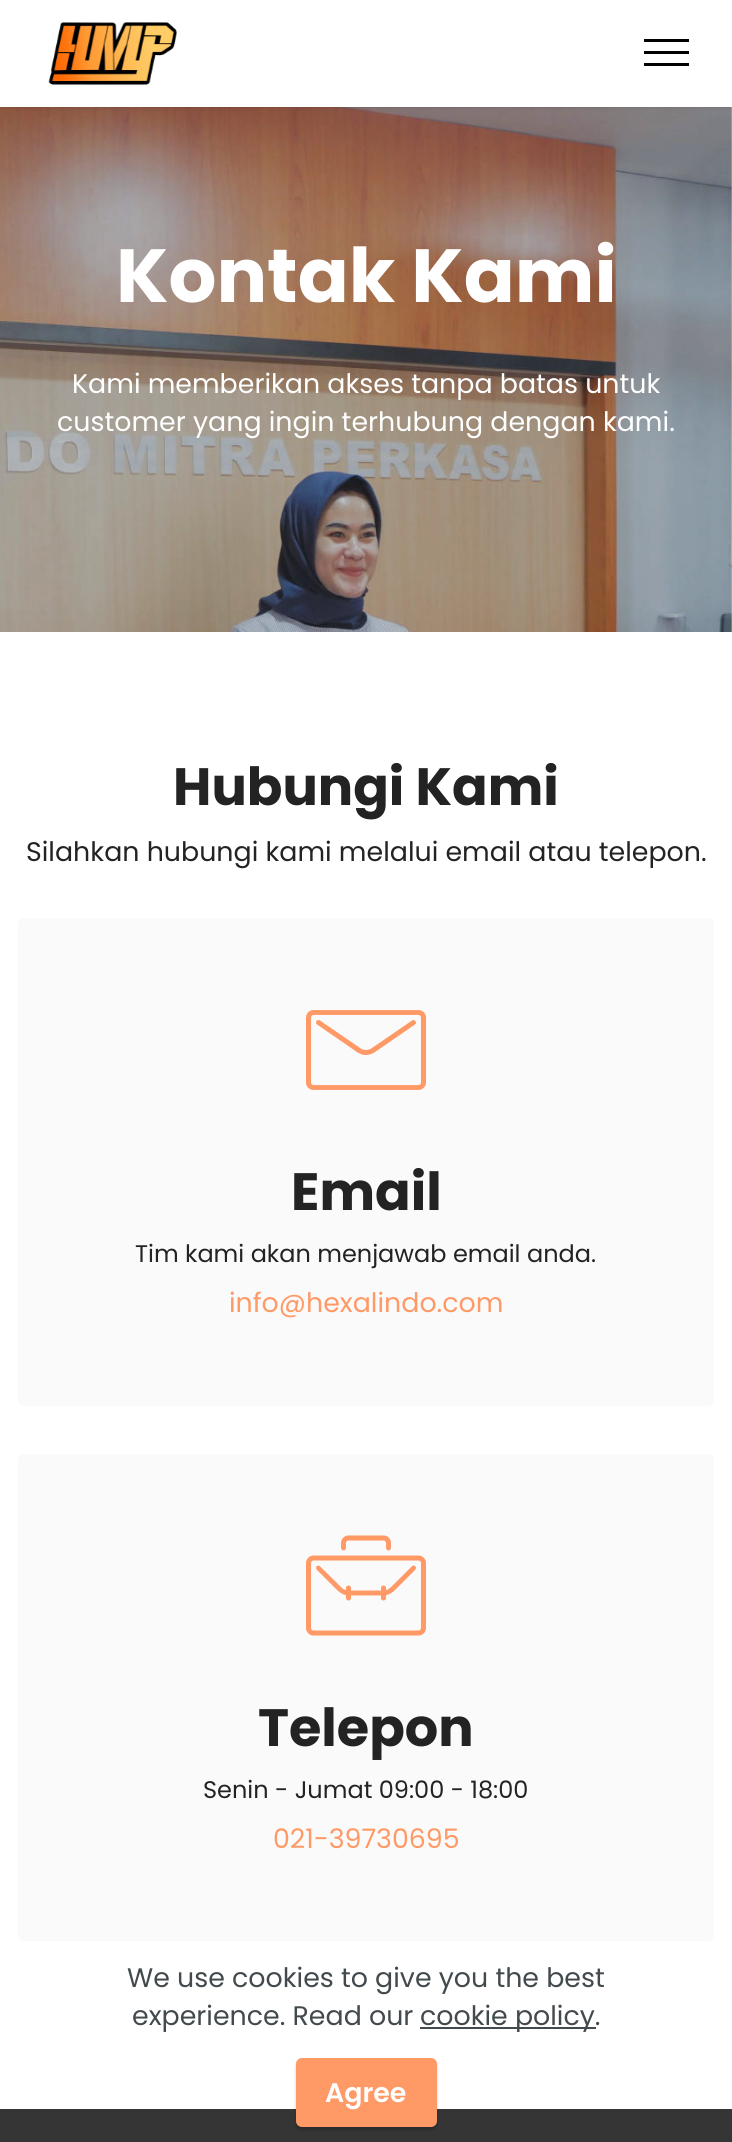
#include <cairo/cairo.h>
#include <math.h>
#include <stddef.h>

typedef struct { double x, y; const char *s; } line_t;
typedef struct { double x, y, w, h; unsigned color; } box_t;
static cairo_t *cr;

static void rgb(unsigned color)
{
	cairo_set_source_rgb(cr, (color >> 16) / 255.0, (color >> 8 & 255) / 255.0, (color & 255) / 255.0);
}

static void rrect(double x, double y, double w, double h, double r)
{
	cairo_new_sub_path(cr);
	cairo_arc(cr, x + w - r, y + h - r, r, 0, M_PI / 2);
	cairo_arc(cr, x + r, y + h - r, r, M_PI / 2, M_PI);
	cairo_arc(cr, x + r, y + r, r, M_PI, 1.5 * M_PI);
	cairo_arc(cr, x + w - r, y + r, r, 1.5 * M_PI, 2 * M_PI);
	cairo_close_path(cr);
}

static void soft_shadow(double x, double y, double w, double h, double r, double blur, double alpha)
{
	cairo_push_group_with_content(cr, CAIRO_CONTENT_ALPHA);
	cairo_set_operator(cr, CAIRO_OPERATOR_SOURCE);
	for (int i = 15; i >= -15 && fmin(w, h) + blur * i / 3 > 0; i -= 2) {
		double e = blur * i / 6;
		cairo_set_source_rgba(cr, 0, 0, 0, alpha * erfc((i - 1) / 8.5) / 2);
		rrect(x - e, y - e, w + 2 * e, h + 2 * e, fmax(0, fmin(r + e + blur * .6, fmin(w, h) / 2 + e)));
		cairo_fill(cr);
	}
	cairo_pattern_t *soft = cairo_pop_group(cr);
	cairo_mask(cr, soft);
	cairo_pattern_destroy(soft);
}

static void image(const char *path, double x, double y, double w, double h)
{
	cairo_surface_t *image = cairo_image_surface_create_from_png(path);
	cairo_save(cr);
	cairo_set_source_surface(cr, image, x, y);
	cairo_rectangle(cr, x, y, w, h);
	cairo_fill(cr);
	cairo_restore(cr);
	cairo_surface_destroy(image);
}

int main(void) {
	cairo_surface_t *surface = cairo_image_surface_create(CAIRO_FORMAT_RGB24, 732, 2142);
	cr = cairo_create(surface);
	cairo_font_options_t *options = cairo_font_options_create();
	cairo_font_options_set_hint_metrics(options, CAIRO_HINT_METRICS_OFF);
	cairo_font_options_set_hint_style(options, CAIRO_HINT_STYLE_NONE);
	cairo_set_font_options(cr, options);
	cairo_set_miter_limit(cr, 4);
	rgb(0xffffff);
	cairo_paint(cr);
	image("img/2.png", 0, 107, 732, 525);
	rgb(0x000000);
	soft_shadow(0, 2, 732, 106, 0, 2, 0.1);
	rgb(0xffffff);
	cairo_rectangle(cr, 0, 0, 732, 107);
	cairo_fill(cr);
	image("img/1.png", 48, 22, 129, 63);
	{
		static const box_t items[] = {
			{644, 39, 45, 3, 0x000000},
			{644, 51, 45, 3, 0x000000},
			{644, 63, 45, 3, 0x000000},
		};
		for (size_t i = 0; i < sizeof items / sizeof *items; i++) {
			rgb(items[i].color);
			cairo_rectangle(cr, items[i].x, items[i].y, items[i].w, items[i].h);
			cairo_fill(cr);
		}
	}
	rgb(0xfafafa);
	rrect(18, 918, 696, 488, 6);
	cairo_fill(cr);
	image("img/3.png", 306, 1010, 120, 80);
	rrect(18, 1454, 696, 487, 6);
	cairo_fill(cr);
	image("img/4.png", 306, 1535, 120, 101);
	rgb(0x424a4d);
	cairo_rectangle(cr, 420, 2027, 176, 2);
	cairo_fill(cr);
	rgb(0x353535);
	cairo_rectangle(cr, 0, 2109, 732, 33);
	cairo_fill(cr);
	rgb(0x000000);
	soft_shadow(296, 2061, 141, 69, 6, 1.5, 0.2);
	rgb(0xff9966);
	rrect(297, 2059, 139, 67, 5);
	cairo_fill_preserve(cr);
	cairo_stroke(cr);
	cairo_select_font_face(cr, "Poppins", CAIRO_FONT_SLANT_NORMAL, CAIRO_FONT_WEIGHT_BOLD);
	cairo_set_font_size(cr, 75.25);
	rgb(0xffffff);
	cairo_move_to(cr, 116, 302);
	cairo_show_text(cr, "Kontak Kami");
	cairo_select_font_face(cr, "Poppins", CAIRO_FONT_SLANT_NORMAL, CAIRO_FONT_WEIGHT_NORMAL);
	cairo_set_font_size(cr, 26.85);
	cairo_move_to(cr, 72, 393);
	cairo_show_text(cr, "Kami memberikan akses tanpa batas untuk");
	cairo_move_to(cr, 57, 431);
	cairo_show_text(cr, "customer yang ingin terhubung dengan kami.");
	cairo_select_font_face(cr, "Poppins", CAIRO_FONT_SLANT_NORMAL, CAIRO_FONT_WEIGHT_BOLD);
	cairo_set_font_size(cr, 52.5);
	rgb(0x232323);
	cairo_move_to(cr, 173, 805);
	cairo_show_text(cr, "Hubungi Kami");
	cairo_select_font_face(cr, "Poppins", CAIRO_FONT_SLANT_NORMAL, CAIRO_FONT_WEIGHT_NORMAL);
	cairo_set_font_size(cr, 26.85);
	cairo_move_to(cr, 26, 861);
	cairo_show_text(cr, "Silahkan hubungi kami melalui email atau telepon.");
	cairo_select_font_face(cr, "Poppins", CAIRO_FONT_SLANT_NORMAL, CAIRO_FONT_WEIGHT_BOLD);
	cairo_set_font_size(cr, 52.5);
	cairo_move_to(cr, 291, 1210);
	cairo_show_text(cr, "Email");
	cairo_select_font_face(cr, "Poppins", CAIRO_FONT_SLANT_NORMAL, CAIRO_FONT_WEIGHT_NORMAL);
	cairo_set_font_size(cr, 24);
	cairo_move_to(cr, 135, 1262);
	cairo_show_text(cr, "Tim kami akan menjawab email anda.");
	cairo_set_font_size(cr, 26.85);
	rgb(0xff9966);
	cairo_move_to(cr, 229, 1312);
	cairo_show_text(cr, "info@hexalindo.com");
	cairo_select_font_face(cr, "Poppins", CAIRO_FONT_SLANT_NORMAL, CAIRO_FONT_WEIGHT_BOLD);
	cairo_set_font_size(cr, 52.5);
	rgb(0x232323);
	cairo_move_to(cr, 258, 1746);
	cairo_show_text(cr, "Telepon");
	cairo_select_font_face(cr, "Poppins", CAIRO_FONT_SLANT_NORMAL, CAIRO_FONT_WEIGHT_NORMAL);
	cairo_set_font_size(cr, 24);
	cairo_move_to(cr, 203, 1798);
	cairo_show_text(cr, "Senin - Jumat 09:00 - 18:00");
	cairo_set_font_size(cr, 26.85);
	rgb(0xff9966);
	cairo_move_to(cr, 273, 1848);
	cairo_show_text(cr, "021-39730695");
	rgb(0x424a4d);
	{
		static const line_t items[] = {
			{127, 1987, "We use cookies to give you the best"},
			{132, 2025, "experience. Read our"},
			{420, 2025, "cookie policy."},
		};
		for (size_t i = 0; i < sizeof items / sizeof *items; i++) {
			cairo_move_to(cr, items[i].x, items[i].y);
			cairo_show_text(cr, items[i].s);
		}
	}
	cairo_select_font_face(cr, "Poppins SemiBold", CAIRO_FONT_SLANT_NORMAL, CAIRO_FONT_WEIGHT_NORMAL);
	rgb(0xffffff);
	cairo_move_to(cr, 325, 2102);
	cairo_show_text(cr, "Agree");
	cairo_surface_write_to_png(surface, "page.png");
	cairo_font_options_destroy(options);
	cairo_destroy(cr);
	cairo_surface_destroy(surface);
	return 0;
}
